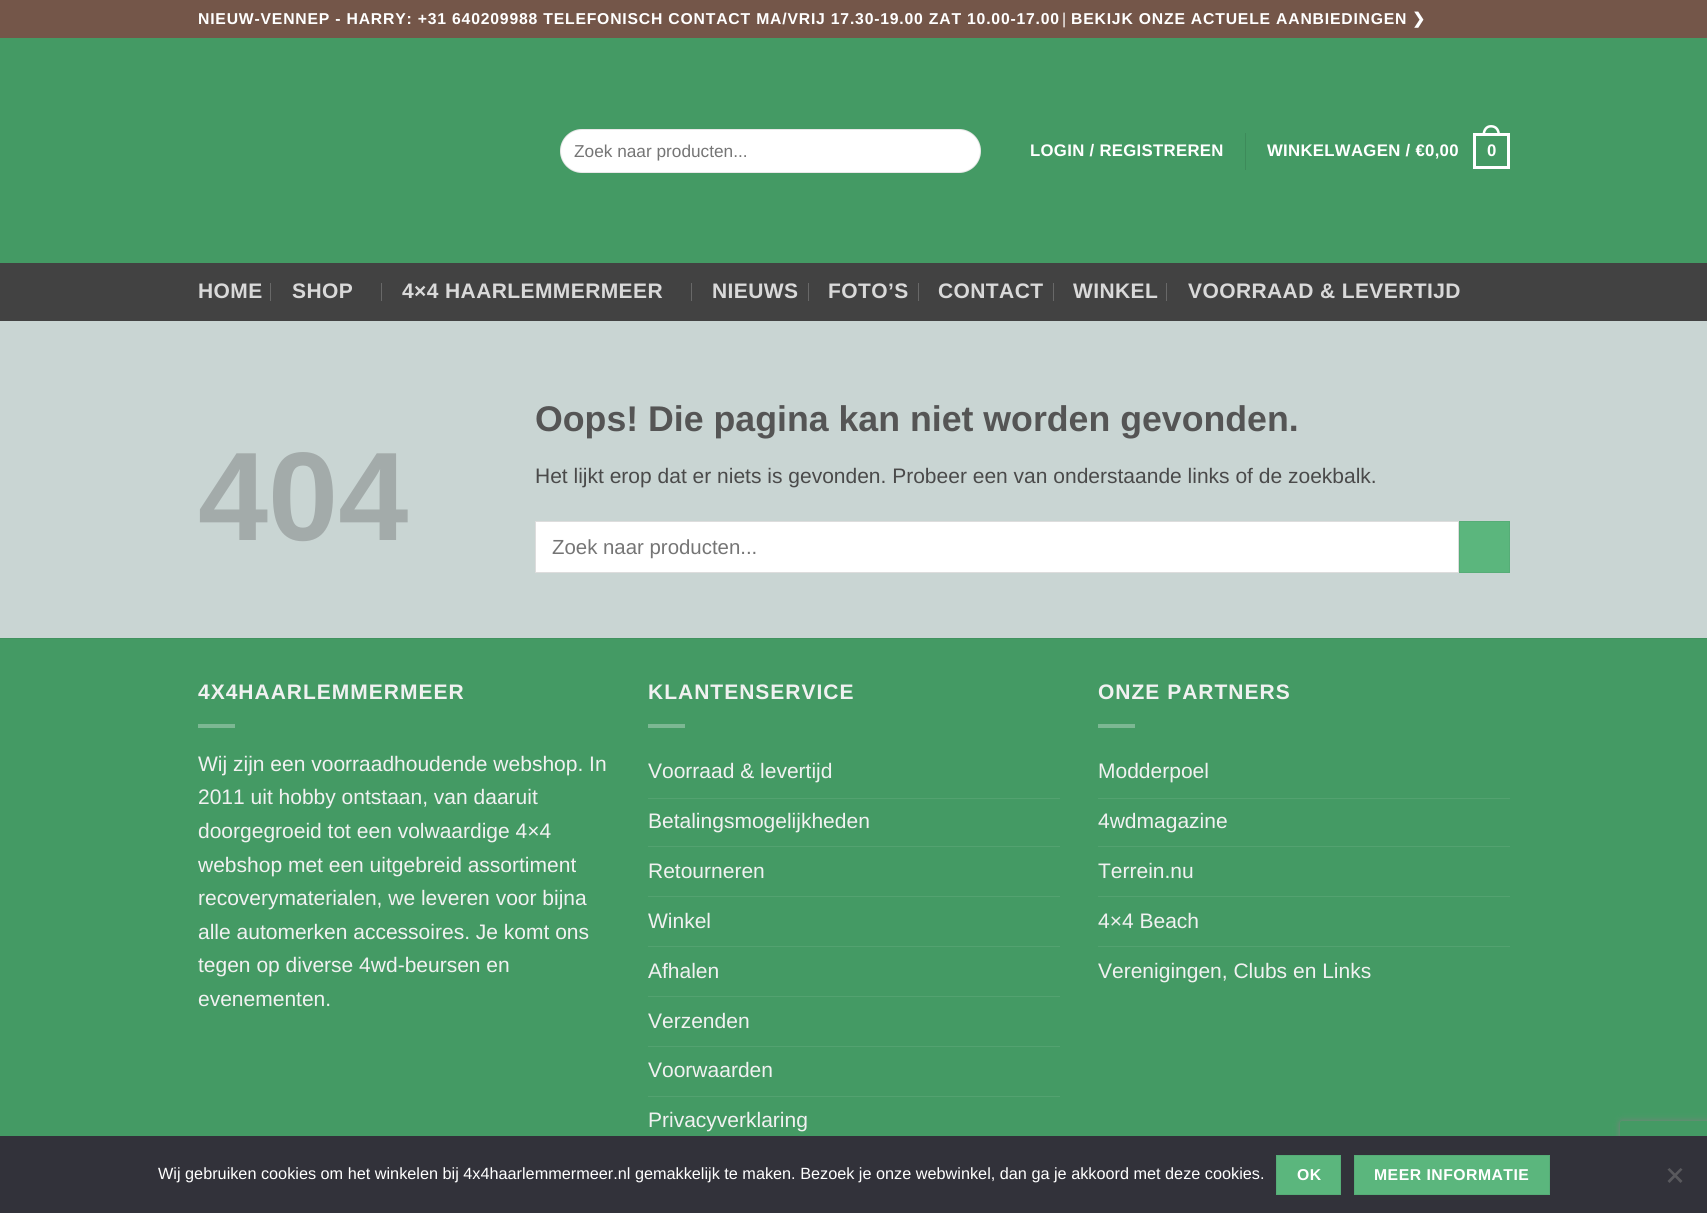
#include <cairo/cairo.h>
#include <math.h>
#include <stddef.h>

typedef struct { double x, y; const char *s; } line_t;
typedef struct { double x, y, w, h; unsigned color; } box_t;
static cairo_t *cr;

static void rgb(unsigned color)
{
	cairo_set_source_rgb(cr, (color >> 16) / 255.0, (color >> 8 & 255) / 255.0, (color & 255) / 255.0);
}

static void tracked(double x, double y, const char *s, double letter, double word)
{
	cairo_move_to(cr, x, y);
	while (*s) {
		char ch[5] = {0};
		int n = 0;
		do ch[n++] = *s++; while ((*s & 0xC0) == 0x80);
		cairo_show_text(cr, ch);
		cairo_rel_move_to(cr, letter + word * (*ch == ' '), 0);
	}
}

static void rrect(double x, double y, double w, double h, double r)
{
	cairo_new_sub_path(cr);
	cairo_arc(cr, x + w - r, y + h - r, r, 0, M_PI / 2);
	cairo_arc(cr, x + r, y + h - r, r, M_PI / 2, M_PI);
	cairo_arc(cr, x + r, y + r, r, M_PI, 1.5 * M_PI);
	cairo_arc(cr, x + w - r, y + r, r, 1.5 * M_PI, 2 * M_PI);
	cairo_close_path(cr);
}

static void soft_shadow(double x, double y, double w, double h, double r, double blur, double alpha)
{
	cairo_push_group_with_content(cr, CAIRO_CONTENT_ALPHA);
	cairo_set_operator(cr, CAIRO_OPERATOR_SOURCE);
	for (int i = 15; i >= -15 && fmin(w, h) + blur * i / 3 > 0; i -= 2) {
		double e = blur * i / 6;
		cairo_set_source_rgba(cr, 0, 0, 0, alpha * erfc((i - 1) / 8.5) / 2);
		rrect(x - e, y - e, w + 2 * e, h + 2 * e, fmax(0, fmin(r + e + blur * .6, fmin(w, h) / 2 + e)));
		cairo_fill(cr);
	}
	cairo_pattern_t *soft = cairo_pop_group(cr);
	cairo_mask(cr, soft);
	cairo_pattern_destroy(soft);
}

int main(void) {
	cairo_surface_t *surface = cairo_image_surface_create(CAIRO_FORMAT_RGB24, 1707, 1213);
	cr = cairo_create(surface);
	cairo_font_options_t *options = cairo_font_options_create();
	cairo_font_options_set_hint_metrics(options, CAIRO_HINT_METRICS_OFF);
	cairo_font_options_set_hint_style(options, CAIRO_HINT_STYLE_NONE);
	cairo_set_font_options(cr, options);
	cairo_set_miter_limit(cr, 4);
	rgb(0xc9d5d3);
	cairo_paint(cr);
	rgb(0x745649);
	cairo_rectangle(cr, 0, 0, 1707, 38);
	cairo_fill(cr);
	rgb(0x449a64);
	cairo_rectangle(cr, 0, 38, 1707, 225);
	cairo_fill(cr);
	rgb(0xffffff);
	rrect(560, 129, 421, 44, 22);
	cairo_fill(cr);
	rrect(560.5, 129.5, 420, 43, 21.5);
	cairo_set_source_rgba(cr, 0, 0, 0, 0.09);
	cairo_set_line_width(cr, 1);
	cairo_stroke(cr);
	rgb(0x3d8b5a);
	cairo_rectangle(cr, 1245, 133, 1, 37);
	cairo_fill(cr);
	cairo_rectangle(cr, 1474.5, 134.5, 34, 33);
	rgb(0xffffff);
	cairo_set_line_width(cr, 3);
	cairo_stroke(cr);
	cairo_set_fill_rule(cr, CAIRO_FILL_RULE_EVEN_ODD);
	cairo_new_path(cr);
	cairo_move_to(cr, 1491, 125);
	cairo_curve_to(cr, 1497, 125, 1500, 129.5, 1500, 135);
	cairo_line_to(cr, 1482.5, 135);
	cairo_curve_to(cr, 1482.5, 129.5, 1485.5, 125, 1491, 125);
	cairo_close_path(cr);
	cairo_move_to(cr, 1491, 127.5);
	cairo_curve_to(cr, 1495.5, 127.5, 1497.5, 131, 1497.5, 135);
	cairo_line_to(cr, 1485, 135);
	cairo_curve_to(cr, 1485, 131, 1487, 127.5, 1491, 127.5);
	cairo_close_path(cr);
	cairo_fill(cr);
	{
		static const box_t items[] = {
			{0, 263, 1707, 58, 0x424242},
			{270, 283, 1, 18, 0x686868},
			{381, 283, 1, 18, 0x686868},
			{691, 283, 1, 18, 0x686868},
			{808, 283, 1, 18, 0x686868},
			{918, 283, 1, 18, 0x686868},
			{1053, 283, 1, 18, 0x686868},
			{1166, 283, 1, 18, 0x686868},
		};
		for (size_t i = 0; i < sizeof items / sizeof *items; i++) {
			rgb(items[i].color);
			cairo_rectangle(cr, items[i].x, items[i].y, items[i].w, items[i].h);
			cairo_fill(cr);
		}
	}
	rgb(0xffffff);
	cairo_rectangle(cr, 535.5, 521.5, 923, 51);
	cairo_fill_preserve(cr);
	rgb(0xdddddd);
	cairo_set_line_width(cr, 1);
	cairo_stroke(cr);
	rgb(0x5bb67d);
	cairo_rectangle(cr, 1459.5, 521.5, 50, 51);
	cairo_fill_preserve(cr);
	rgb(0x56ad77);
	cairo_stroke(cr);
	{
		static const box_t items[] = {
			{0, 639, 1707, 497, 0x449a64},
			{0, 638, 1707, 1, 0x41925f},
			{198, 724, 37, 4, 0x7cb893},
			{648, 724, 37, 4, 0x7cb893},
			{648, 798, 412, 1, 0x53a270},
			{648, 846, 412, 1, 0x53a270},
			{648, 896, 412, 1, 0x53a270},
			{648, 946, 412, 1, 0x53a270},
			{648, 996, 412, 1, 0x53a270},
			{648, 1046, 412, 1, 0x53a270},
			{648, 1096, 412, 1, 0x53a270},
			{1098, 724, 37, 4, 0x7cb893},
			{1098, 798, 412, 1, 0x53a270},
			{1098, 846, 412, 1, 0x53a270},
			{1098, 896, 412, 1, 0x53a270},
			{1098, 946, 412, 1, 0x53a270},
		};
		for (size_t i = 0; i < sizeof items / sizeof *items; i++) {
			rgb(items[i].color);
			cairo_rectangle(cr, items[i].x, items[i].y, items[i].w, items[i].h);
			cairo_fill(cr);
		}
	}
	cairo_save(cr);
	cairo_new_path(cr);
	cairo_move_to(cr, 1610, 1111);
	cairo_line_to(cr, 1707, 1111);
	cairo_line_to(cr, 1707, 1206);
	cairo_line_to(cr, 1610, 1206);
	cairo_close_path(cr);
	cairo_move_to(cr, 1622.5, 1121);
	cairo_line_to(cr, 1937.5, 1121);
	cairo_curve_to(cr, 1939, 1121, 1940, 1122, 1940, 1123.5);
	cairo_line_to(cr, 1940, 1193.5);
	cairo_curve_to(cr, 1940, 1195, 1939, 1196, 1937.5, 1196);
	cairo_line_to(cr, 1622.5, 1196);
	cairo_curve_to(cr, 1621, 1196, 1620, 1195, 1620, 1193.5);
	cairo_line_to(cr, 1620, 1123.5);
	cairo_curve_to(cr, 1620, 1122, 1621, 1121, 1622.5, 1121);
	cairo_close_path(cr);
	cairo_clip(cr);
	rgb(0x808080);
	soft_shadow(1620, 1121, 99, 75, 2.5, 3, 1);
	cairo_restore(cr);
	rgb(0x32323a);
	cairo_rectangle(cr, 0, 1136, 1707, 77);
	cairo_fill(cr);
	rgb(0x5bb67d);
	cairo_rectangle(cr, 1276.5, 1155.5, 64, 39);
	cairo_fill_preserve(cr);
	rgb(0x56ad77);
	cairo_stroke(cr);
	rgb(0x5bb67d);
	cairo_rectangle(cr, 1354.5, 1155.5, 195, 39);
	cairo_fill_preserve(cr);
	rgb(0x56ad77);
	cairo_stroke(cr);
	rgb(0x59595d);
	cairo_set_fill_rule(cr, CAIRO_FILL_RULE_WINDING);
	cairo_new_path(cr);
	cairo_move_to(cr, 1680.5, 1168);
	cairo_line_to(cr, 1682.5, 1169.5);
	cairo_line_to(cr, 1669.5, 1183);
	cairo_line_to(cr, 1667.5, 1181);
	cairo_close_path(cr);
	cairo_fill(cr);
	cairo_new_path(cr);
	cairo_move_to(cr, 1667.5, 1169.5);
	cairo_line_to(cr, 1669.5, 1168);
	cairo_line_to(cr, 1682.5, 1181);
	cairo_line_to(cr, 1680.5, 1183);
	cairo_close_path(cr);
	cairo_fill(cr);
	cairo_select_font_face(cr, "Liberation Sans", CAIRO_FONT_SLANT_NORMAL, CAIRO_FONT_WEIGHT_BOLD);
	cairo_set_font_size(cr, 15.75);
	rgb(0xffffff);
	tracked(198, 24, "NIEUW-VENNEP - HARRY: +31 640209988 TELEFONISCH CONTACT MA/VRIJ 17.30-19.00 ZAT 10.00-17.00", 0.8, 0);
	cairo_select_font_face(cr, "Liberation Sans", CAIRO_FONT_SLANT_NORMAL, CAIRO_FONT_WEIGHT_NORMAL);
	cairo_move_to(cr, 1062, 24);
	cairo_show_text(cr, "|");
	cairo_select_font_face(cr, "Liberation Sans", CAIRO_FONT_SLANT_NORMAL, CAIRO_FONT_WEIGHT_BOLD);
	tracked(1071, 24, "BEKIJK ONZE ACTUELE AANBIEDINGEN", 0.8, 0);
	cairo_select_font_face(cr, "DejaVu Sans", CAIRO_FONT_SLANT_NORMAL, CAIRO_FONT_WEIGHT_BOLD);
	tracked(1412, 24, "❯", 0.8, 0);
	cairo_select_font_face(cr, "Liberation Sans", CAIRO_FONT_SLANT_NORMAL, CAIRO_FONT_WEIGHT_NORMAL);
	cairo_set_font_size(cr, 17.25);
	rgb(0x757575);
	cairo_move_to(cr, 574, 157);
	cairo_show_text(cr, "Zoek naar producten...");
	cairo_select_font_face(cr, "Liberation Sans", CAIRO_FONT_SLANT_NORMAL, CAIRO_FONT_WEIGHT_BOLD);
	cairo_set_font_size(cr, 16.75);
	rgb(0xffffff);
	{
		static const line_t items[] = {
			{1030, 156, "LOGIN / REGISTREREN"},
			{1267, 156, "WINKELWAGEN / €0,00"},
			{1487, 156, "0"},
		};
		for (size_t i = 0; i < sizeof items / sizeof *items; i++) {
			tracked(items[i].x, items[i].y, items[i].s, 0.3, 0);
		}
	}
	cairo_set_font_size(cr, 21);
	rgb(0xd9d9d9);
	{
		static const line_t items[] = {
			{198, 298, "HOME"},
			{292, 298, "SHOP"},
			{402, 298, "4×4 HAARLEMMERMEER"},
			{712, 298, "NIEUWS"},
			{828, 298, "FOTO’S"},
			{938, 298, "CONTACT"},
			{1073, 298, "WINKEL"},
			{1188, 298, "VOORRAAD & LEVERTIJD"},
		};
		for (size_t i = 0; i < sizeof items / sizeof *items; i++) {
			tracked(items[i].x, items[i].y, items[i].s, 0.4, 0);
		}
	}
	cairo_set_font_size(cr, 126);
	rgb(0xa3abaa);
	cairo_move_to(cr, 198, 540);
	cairo_show_text(cr, "404");
	cairo_set_font_size(cr, 35.7);
	rgb(0x555555);
	cairo_move_to(cr, 535, 431);
	cairo_show_text(cr, "Oops! Die pagina kan niet worden gevonden.");
	cairo_select_font_face(cr, "Liberation Sans", CAIRO_FONT_SLANT_NORMAL, CAIRO_FONT_WEIGHT_NORMAL);
	cairo_set_font_size(cr, 21);
	rgb(0x4a4a4a);
	cairo_move_to(cr, 535, 483);
	cairo_show_text(cr, "Het lijkt erop dat er niets is gevonden. Probeer een van onderstaande links of de zoekbalk.");
	cairo_set_font_size(cr, 20.4);
	rgb(0x757575);
	cairo_move_to(cr, 552, 554);
	cairo_show_text(cr, "Zoek naar producten...");
	cairo_select_font_face(cr, "Liberation Sans", CAIRO_FONT_SLANT_NORMAL, CAIRO_FONT_WEIGHT_BOLD);
	cairo_set_font_size(cr, 21);
	rgb(0xf1f1f1);
	tracked(198, 699, "4X4HAARLEMMERMEER", 1, 0);
	cairo_select_font_face(cr, "Liberation Sans", CAIRO_FONT_SLANT_NORMAL, CAIRO_FONT_WEIGHT_NORMAL);
	{
		static const line_t items[] = {
			{198, 771, "Wij zijn een voorraadhoudende webshop. In"},
			{198, 804, "2011 uit hobby ontstaan, van daaruit"},
			{198, 838, "doorgegroeid tot een volwaardige 4×4"},
			{198, 872, "webshop met een uitgebreid assortiment"},
			{198, 905, "recoverymaterialen, we leveren voor bijna"},
			{198, 939, "alle automerken accessoires. Je komt ons"},
			{198, 972, "tegen op diverse 4wd-beursen en"},
			{198, 1006, "evenementen."},
		};
		for (size_t i = 0; i < sizeof items / sizeof *items; i++) {
			cairo_move_to(cr, items[i].x, items[i].y);
			cairo_show_text(cr, items[i].s);
		}
	}
	cairo_select_font_face(cr, "Liberation Sans", CAIRO_FONT_SLANT_NORMAL, CAIRO_FONT_WEIGHT_BOLD);
	tracked(648, 699, "KLANTENSERVICE", 1, 0);
	cairo_select_font_face(cr, "Liberation Sans", CAIRO_FONT_SLANT_NORMAL, CAIRO_FONT_WEIGHT_NORMAL);
	{
		static const line_t items[] = {
			{648, 778, "Voorraad & levertijd"},
			{648, 828, "Betalingsmogelijkheden"},
			{648, 878, "Retourneren"},
			{648, 928, "Winkel"},
			{648, 978, "Afhalen"},
			{648, 1028, "Verzenden"},
			{648, 1077, "Voorwaarden"},
			{648, 1127, "Privacyverklaring"},
		};
		for (size_t i = 0; i < sizeof items / sizeof *items; i++) {
			cairo_move_to(cr, items[i].x, items[i].y);
			cairo_show_text(cr, items[i].s);
		}
	}
	cairo_select_font_face(cr, "Liberation Sans", CAIRO_FONT_SLANT_NORMAL, CAIRO_FONT_WEIGHT_BOLD);
	tracked(1098, 699, "ONZE PARTNERS", 1, 0);
	cairo_select_font_face(cr, "Liberation Sans", CAIRO_FONT_SLANT_NORMAL, CAIRO_FONT_WEIGHT_NORMAL);
	{
		static const line_t items[] = {
			{1098, 778, "Modderpoel"},
			{1098, 828, "4wdmagazine"},
			{1098, 878, "Terrein.nu"},
			{1098, 928, "4×4 Beach"},
			{1098, 978, "Verenigingen, Clubs en Links"},
		};
		for (size_t i = 0; i < sizeof items / sizeof *items; i++) {
			cairo_move_to(cr, items[i].x, items[i].y);
			cairo_show_text(cr, items[i].s);
		}
	}
	cairo_set_font_size(cr, 16.25);
	rgb(0xffffff);
	cairo_move_to(cr, 158, 1179);
	cairo_show_text(cr, "Wij gebruiken cookies om het winkelen bij 4x4haarlemmermeer.nl gemakkelijk te maken. Bezoek je onze webwinkel, dan ga je akkoord met deze cookies.");
	cairo_select_font_face(cr, "Liberation Sans", CAIRO_FONT_SLANT_NORMAL, CAIRO_FONT_WEIGHT_BOLD);
	cairo_set_font_size(cr, 15.75);
	tracked(1297, 1180, "OK", 0.5, 0);
	tracked(1374, 1180, "MEER INFORMATIE", 0.5, 0);
	cairo_surface_write_to_png(surface, "page.png");
	cairo_font_options_destroy(options);
	cairo_destroy(cr);
	cairo_surface_destroy(surface);
	return 0;
}
